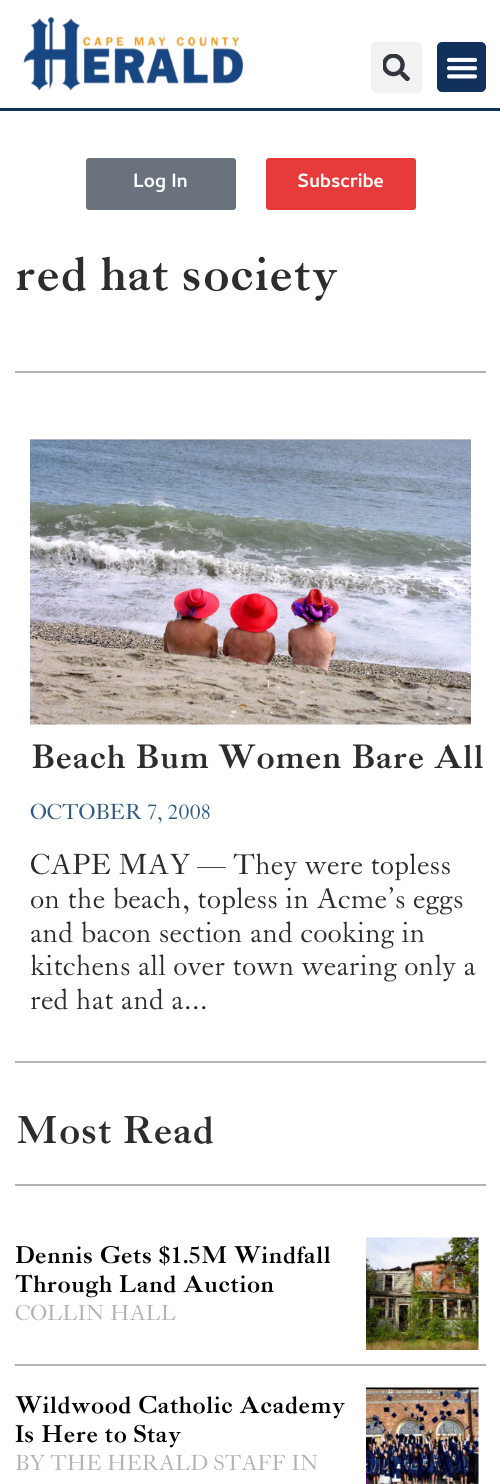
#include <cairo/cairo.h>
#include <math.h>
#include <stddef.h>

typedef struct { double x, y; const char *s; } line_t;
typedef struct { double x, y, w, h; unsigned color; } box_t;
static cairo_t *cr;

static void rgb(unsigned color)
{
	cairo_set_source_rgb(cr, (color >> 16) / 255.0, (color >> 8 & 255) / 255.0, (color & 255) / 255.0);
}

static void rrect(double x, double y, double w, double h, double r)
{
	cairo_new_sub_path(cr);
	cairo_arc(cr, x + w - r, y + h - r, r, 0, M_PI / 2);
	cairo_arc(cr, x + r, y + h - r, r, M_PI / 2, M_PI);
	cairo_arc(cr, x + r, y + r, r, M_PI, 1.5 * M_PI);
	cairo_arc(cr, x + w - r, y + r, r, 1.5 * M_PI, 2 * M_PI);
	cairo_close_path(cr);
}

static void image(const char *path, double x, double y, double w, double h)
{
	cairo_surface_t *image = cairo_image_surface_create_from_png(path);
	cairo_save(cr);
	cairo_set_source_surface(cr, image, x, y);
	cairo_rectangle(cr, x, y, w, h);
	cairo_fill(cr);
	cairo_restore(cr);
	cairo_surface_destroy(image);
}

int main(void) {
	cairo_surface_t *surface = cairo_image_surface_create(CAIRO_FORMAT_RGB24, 500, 1484);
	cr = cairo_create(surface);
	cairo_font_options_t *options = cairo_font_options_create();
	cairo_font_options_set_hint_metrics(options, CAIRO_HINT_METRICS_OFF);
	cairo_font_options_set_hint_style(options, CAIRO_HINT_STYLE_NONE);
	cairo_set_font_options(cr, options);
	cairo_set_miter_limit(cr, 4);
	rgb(0xffffff);
	cairo_paint(cr);
	rgb(0x11315a);
	cairo_rectangle(cr, 0, 108, 500, 3);
	cairo_fill(cr);
	image("img/1.png", 23, 16, 221, 75);
	rgb(0xf2f2f2);
	rrect(371, 42, 51, 51, 5);
	cairo_fill(cr);
	image("img/2.png", 383, 54, 27, 27);
	rgb(0x11315a);
	rrect(437, 42, 49, 50, 5);
	cairo_fill(cr);
	image("img/3.png", 446, 57, 32, 22);
	rgb(0x69727d);
	rrect(86, 158, 150, 52, 3);
	cairo_fill(cr);
	rgb(0xe73b3b);
	rrect(266, 158, 150, 52, 3);
	cairo_fill(cr);
	rgb(0xb3b3b3);
	cairo_rectangle(cr, 15, 371, 471, 2);
	cairo_fill(cr);
	image("img/4.png", 30, 439, 441, 286);
	{
		static const box_t items[] = {
			{15, 1061, 471, 2, 0xb3b3b3},
			{15, 1184, 471, 2, 0xb3b3b3},
			{15, 1364, 471, 2, 0xb3b3b3},
		};
		for (size_t i = 0; i < sizeof items / sizeof *items; i++) {
			rgb(items[i].color);
			cairo_rectangle(cr, items[i].x, items[i].y, items[i].w, items[i].h);
			cairo_fill(cr);
		}
	}
	image("img/5.png", 366, 1237, 113, 113);
	image("img/6.png", 366, 1387, 113, 97);
	cairo_select_font_face(cr, "Cambay", CAIRO_FONT_SLANT_NORMAL, CAIRO_FONT_WEIGHT_BOLD);
	cairo_set_font_size(cr, 19.5);
	rgb(0xffffff);
	cairo_move_to(cr, 133, 187);
	cairo_show_text(cr, "Log In");
	cairo_move_to(cr, 297, 187);
	cairo_show_text(cr, "Subscribe");
	cairo_select_font_face(cr, "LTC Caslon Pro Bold", CAIRO_FONT_SLANT_NORMAL, CAIRO_FONT_WEIGHT_BOLD);
	cairo_set_font_size(cr, 48);
	rgb(0x2d2d2d);
	cairo_move_to(cr, 15, 290);
	cairo_show_text(cr, "red hat society");
	cairo_set_font_size(cr, 33.6);
	cairo_move_to(cr, 30, 768);
	cairo_show_text(cr, "Beach Bum Women Bare All");
	cairo_select_font_face(cr, "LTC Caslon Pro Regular", CAIRO_FONT_SLANT_NORMAL, CAIRO_FONT_WEIGHT_NORMAL);
	cairo_set_font_size(cr, 21.6);
	rgb(0x305b80);
	cairo_move_to(cr, 30, 819);
	cairo_show_text(cr, "OCTOBER 7, 2008");
	cairo_set_font_size(cr, 28.75);
	rgb(0x2d2d2d);
	{
		static const line_t items[] = {
			{30, 874, "CAPE MAY — They were topless"},
			{30, 908, "on the beach, topless in Acme’s eggs"},
			{30, 942, "and bacon section and cooking in"},
			{30, 975, "kitchens all over town wearing only a"},
			{30, 1009, "red hat and a..."},
		};
		for (size_t i = 0; i < sizeof items / sizeof *items; i++) {
			cairo_move_to(cr, items[i].x, items[i].y);
			cairo_show_text(cr, items[i].s);
		}
	}
	cairo_select_font_face(cr, "LTC Caslon Pro Bold", CAIRO_FONT_SLANT_NORMAL, CAIRO_FONT_WEIGHT_BOLD);
	cairo_set_font_size(cr, 38.5);
	cairo_move_to(cr, 15, 1143);
	cairo_show_text(cr, "Most Read");
	cairo_set_font_size(cr, 24);
	rgb(0x000000);
	cairo_move_to(cr, 15, 1263);
	cairo_show_text(cr, "Dennis Gets $1.5M Windfall");
	cairo_move_to(cr, 15, 1292);
	cairo_show_text(cr, "Through Land Auction");
	cairo_select_font_face(cr, "LTC Caslon Pro Regular", CAIRO_FONT_SLANT_NORMAL, CAIRO_FONT_WEIGHT_NORMAL);
	cairo_set_font_size(cr, 21.6);
	rgb(0xb3b3b3);
	cairo_move_to(cr, 15, 1320);
	cairo_show_text(cr, "COLLIN HALL");
	cairo_select_font_face(cr, "LTC Caslon Pro Bold", CAIRO_FONT_SLANT_NORMAL, CAIRO_FONT_WEIGHT_BOLD);
	cairo_set_font_size(cr, 24);
	rgb(0x000000);
	cairo_move_to(cr, 15, 1413);
	cairo_show_text(cr, "Wildwood Catholic Academy");
	cairo_move_to(cr, 15, 1442);
	cairo_show_text(cr, "Is Here to Stay");
	cairo_select_font_face(cr, "LTC Caslon Pro Regular", CAIRO_FONT_SLANT_NORMAL, CAIRO_FONT_WEIGHT_NORMAL);
	cairo_set_font_size(cr, 21.6);
	rgb(0xb3b3b3);
	cairo_move_to(cr, 15, 1470);
	cairo_show_text(cr, "BY THE HERALD STAFF IN");
	cairo_surface_write_to_png(surface, "page.png");
	cairo_font_options_destroy(options);
	cairo_destroy(cr);
	cairo_surface_destroy(surface);
	return 0;
}
